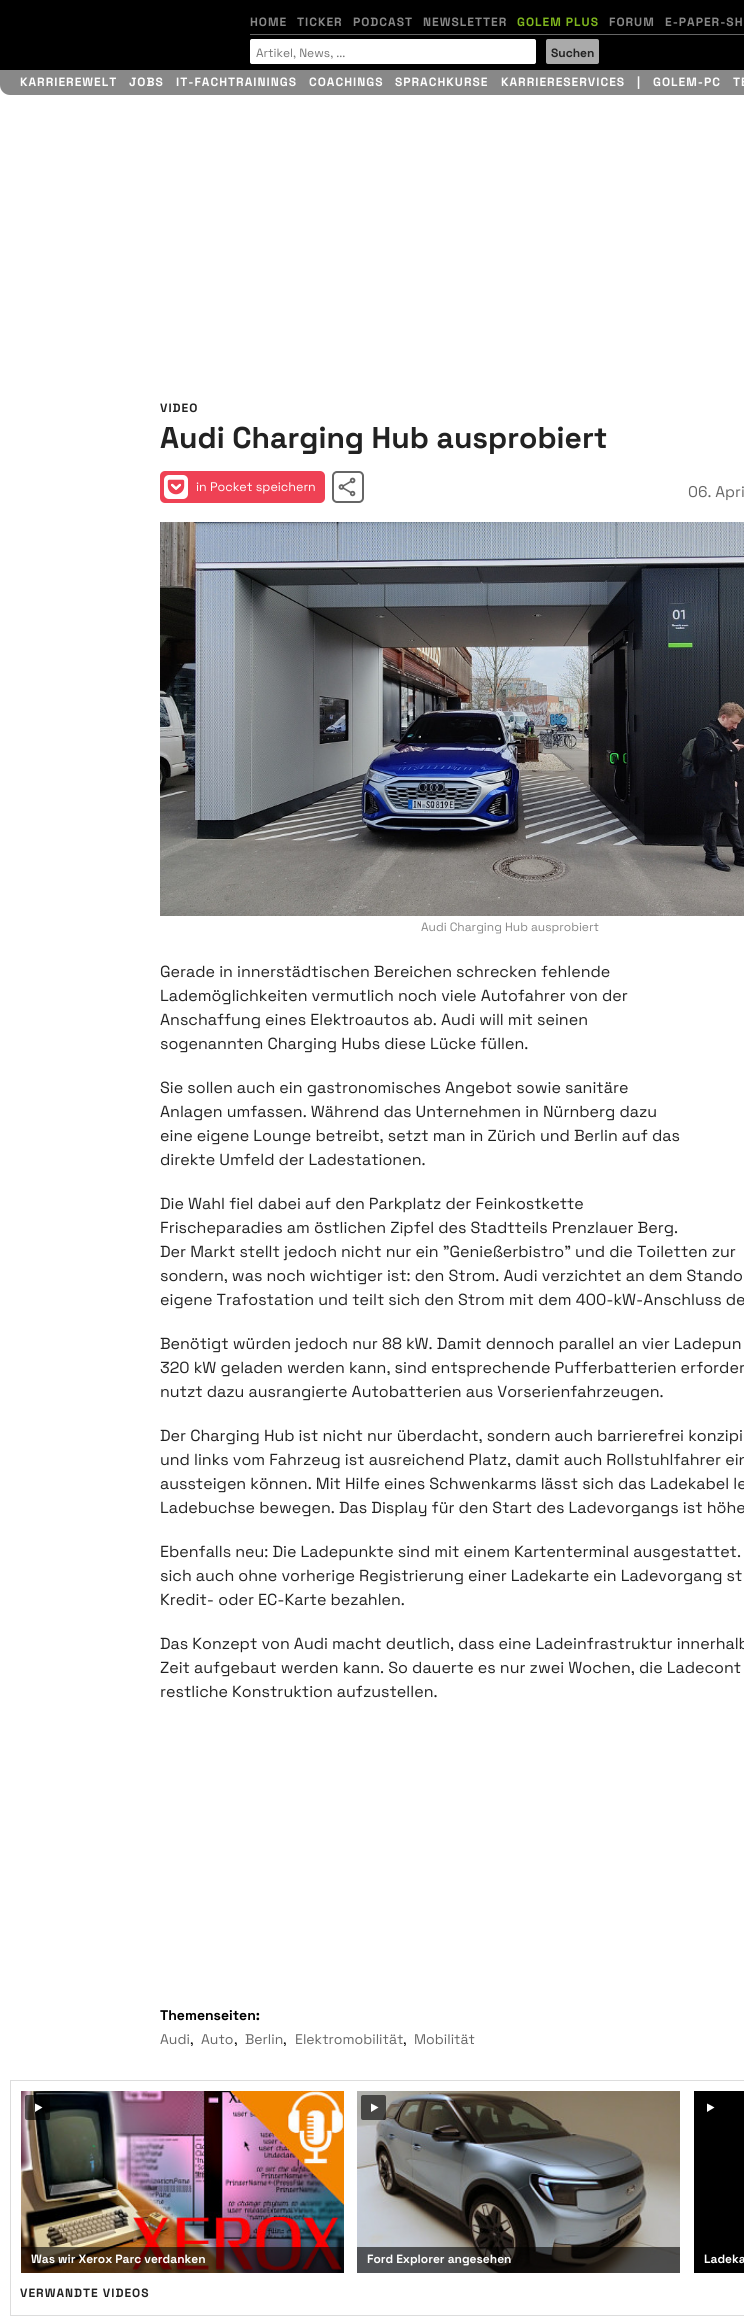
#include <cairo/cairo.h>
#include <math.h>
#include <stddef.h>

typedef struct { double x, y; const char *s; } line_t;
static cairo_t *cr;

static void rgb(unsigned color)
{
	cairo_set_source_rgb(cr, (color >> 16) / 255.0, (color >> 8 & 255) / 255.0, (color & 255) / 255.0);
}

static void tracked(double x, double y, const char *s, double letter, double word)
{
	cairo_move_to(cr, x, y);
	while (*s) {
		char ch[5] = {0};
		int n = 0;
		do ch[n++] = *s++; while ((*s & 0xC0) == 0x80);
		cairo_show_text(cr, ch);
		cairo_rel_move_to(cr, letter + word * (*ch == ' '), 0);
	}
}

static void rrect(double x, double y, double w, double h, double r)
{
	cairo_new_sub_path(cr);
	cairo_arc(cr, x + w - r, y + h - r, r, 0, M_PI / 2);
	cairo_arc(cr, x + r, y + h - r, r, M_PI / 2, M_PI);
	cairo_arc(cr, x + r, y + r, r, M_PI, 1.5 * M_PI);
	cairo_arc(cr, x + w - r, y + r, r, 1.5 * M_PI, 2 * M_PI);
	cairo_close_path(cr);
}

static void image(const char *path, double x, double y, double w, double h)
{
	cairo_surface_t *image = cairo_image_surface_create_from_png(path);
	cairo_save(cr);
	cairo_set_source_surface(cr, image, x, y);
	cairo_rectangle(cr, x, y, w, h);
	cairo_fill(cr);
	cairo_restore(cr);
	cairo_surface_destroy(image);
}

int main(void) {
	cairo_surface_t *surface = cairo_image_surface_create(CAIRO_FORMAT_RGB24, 744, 2319);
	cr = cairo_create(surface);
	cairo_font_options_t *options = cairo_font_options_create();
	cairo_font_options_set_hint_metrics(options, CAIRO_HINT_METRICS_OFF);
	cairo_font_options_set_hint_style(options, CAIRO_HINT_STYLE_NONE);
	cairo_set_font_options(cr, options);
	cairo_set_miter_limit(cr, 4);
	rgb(0xffffff);
	cairo_paint(cr);
	rgb(0x000000);
	cairo_rectangle(cr, 0, 0, 744, 70);
	cairo_fill(cr);
	rgb(0x666666);
	cairo_rectangle(cr, 250, 34, 494, 1);
	cairo_fill(cr);
	rgb(0xffffff);
	rrect(250.5, 39.5, 285, 24, 1.5);
	cairo_fill_preserve(cr);
	cairo_set_line_width(cr, 1);
	cairo_stroke(cr);
	rgb(0xaaaaaa);
	rrect(546, 39, 53, 25, 2);
	cairo_fill(cr);
	rgb(0x888888);
	cairo_new_path(cr);
	cairo_move_to(cr, 0, 70);
	cairo_line_to(cr, 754, 70);
	cairo_line_to(cr, 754, 85);
	cairo_curve_to(cr, 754, 90.5, 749.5, 95, 744, 95);
	cairo_line_to(cr, 10, 95);
	cairo_curve_to(cr, 4.5, 95, 0, 90.5, 0, 85);
	cairo_close_path(cr);
	cairo_fill(cr);
	rgb(0xef4154);
	rrect(160, 471, 165, 32, 5);
	cairo_fill(cr);
	rgb(0xffffff);
	rrect(164, 475, 24, 24, 5);
	cairo_fill(cr);
	image("img/1.png", 167, 479, 18, 16);
	rrect(333, 472, 30, 30, 4);
	rgb(0x666666);
	cairo_set_line_width(cr, 2);
	cairo_stroke(cr);
	image("img/2.png", 338, 477, 18, 20);
	image("img/3.png", 160, 522, 584, 394);
	cairo_rectangle(cr, 10.5, 2080.5, 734, 235);
	rgb(0xdddddd);
	cairo_set_line_width(cr, 1);
	cairo_stroke(cr);
	image("img/4.png", 21, 2091, 323, 182);
	cairo_set_source_rgba(cr, 0, 0, 0, 0.6);
	rrect(25, 2095, 25, 25, 2);
	cairo_fill(cr);
	rgb(0xffffff);
	cairo_new_path(cr);
	cairo_move_to(cr, 42.5, 2107.5);
	cairo_line_to(cr, 35, 2112);
	cairo_line_to(cr, 35, 2103.5);
	cairo_line_to(cr, 39, 2105.5);
	cairo_fill(cr);
	cairo_set_source_rgba(cr, 0, 0, 0, 0.6);
	cairo_rectangle(cr, 21, 2247, 323, 26);
	cairo_fill(cr);
	image("img/5.png", 357, 2091, 323, 182);
	rrect(361, 2095, 25, 25, 2);
	cairo_fill(cr);
	rgb(0xffffff);
	cairo_new_path(cr);
	cairo_move_to(cr, 378.5, 2107.5);
	cairo_line_to(cr, 371, 2112);
	cairo_line_to(cr, 371, 2103.5);
	cairo_line_to(cr, 375, 2105.5);
	cairo_fill(cr);
	cairo_set_source_rgba(cr, 0, 0, 0, 0.6);
	cairo_rectangle(cr, 357, 2247, 323, 26);
	cairo_fill(cr);
	rgb(0x000000);
	cairo_rectangle(cr, 694, 2091, 50, 182);
	cairo_fill(cr);
	rgb(0xffffff);
	cairo_new_path(cr);
	cairo_move_to(cr, 714.5, 2107.5);
	cairo_line_to(cr, 707, 2112);
	cairo_line_to(cr, 707, 2103.5);
	cairo_line_to(cr, 711, 2105.5);
	cairo_fill(cr);
	cairo_select_font_face(cr, "Space Grotesk", CAIRO_FONT_SLANT_NORMAL, CAIRO_FONT_WEIGHT_BOLD);
	cairo_set_font_size(cr, 12);
	rgb(0x888888);
	{
		static const line_t items[] = {
			{250, 26, "HOME"},
			{297, 26, "TICKER"},
			{353, 26, "PODCAST"},
			{423, 26, "NEWSLETTER"},
		};
		for (size_t i = 0; i < sizeof items / sizeof *items; i++) {
			tracked(items[i].x, items[i].y, items[i].s, 1, 0);
		}
	}
	rgb(0x7fb71e);
	tracked(517, 26, "GOLEM PLUS", 1, 0);
	rgb(0x888888);
	tracked(609, 26, "FORUM", 1, 0);
	tracked(665, 26, "E-PAPER-SH", 1, 0);
	cairo_select_font_face(cr, "Space Grotesk", CAIRO_FONT_SLANT_NORMAL, CAIRO_FONT_WEIGHT_NORMAL);
	rgb(0x757575);
	cairo_move_to(cr, 256, 57);
	cairo_show_text(cr, "Artikel, News, ...");
	cairo_select_font_face(cr, "Space Grotesk", CAIRO_FONT_SLANT_NORMAL, CAIRO_FONT_WEIGHT_BOLD);
	rgb(0x222222);
	cairo_move_to(cr, 551, 57);
	cairo_show_text(cr, "Suchen");
	rgb(0xffffff);
	{
		static const line_t items[] = {
			{20, 86, "KARRIEREWELT"},
			{129, 86, "JOBS"},
			{176, 86, "IT-FACHTRAININGS"},
			{309, 86, "COACHINGS"},
			{395, 86, "SPRACHKURSE"},
			{501, 86, "KARRIERESERVICES"},
			{637, 86, "|"},
			{653, 86, "GOLEM-PC"},
			{733, 86, "TE"},
		};
		for (size_t i = 0; i < sizeof items / sizeof *items; i++) {
			tracked(items[i].x, items[i].y, items[i].s, 1, 0);
		}
	}
	rgb(0x222222);
	tracked(160, 412, "VIDEO", 1, 0);
	cairo_set_font_size(cr, 30);
	cairo_move_to(cr, 160, 448);
	cairo_show_text(cr, "Audi Charging Hub ausprobiert");
	cairo_select_font_face(cr, "Space Grotesk", CAIRO_FONT_SLANT_NORMAL, CAIRO_FONT_WEIGHT_NORMAL);
	cairo_set_font_size(cr, 12.5);
	rgb(0xffffff);
	cairo_move_to(cr, 196, 491);
	cairo_show_text(cr, "in Pocket speichern");
	cairo_set_font_size(cr, 15.5);
	rgb(0x666666);
	cairo_move_to(cr, 688, 497);
	cairo_show_text(cr, "06. Apri");
	cairo_set_font_size(cr, 12);
	rgb(0x888888);
	cairo_move_to(cr, 421, 931);
	cairo_show_text(cr, "Audi Charging Hub ausprobiert");
	cairo_set_font_size(cr, 16);
	rgb(0x222222);
	{
		static const line_t items[] = {
			{160, 977, "Gerade in innerstädtischen Bereichen schrecken fehlende"},
			{160, 1001, "Lademöglichkeiten vermutlich noch viele Autofahrer von der"},
			{160, 1025, "Anschaffung eines Elektroautos ab. Audi will mit seinen"},
			{160, 1049, "sogenannten Charging Hubs diese Lücke füllen."},
			{160, 1093, "Sie sollen auch ein gastronomisches Angebot sowie sanitäre"},
			{160, 1117, "Anlagen umfassen. Während das Unternehmen in Nürnberg dazu"},
			{160, 1141, "eine eigene Lounge betreibt, setzt man in Zürich und Berlin auf das"},
			{160, 1165, "direkte Umfeld der Ladestationen."},
			{160, 1209, "Die Wahl fiel dabei auf den Parkplatz der Feinkostkette"},
			{160, 1233, "Frischeparadies am östlichen Zipfel des Stadtteils Prenzlauer Berg."},
			{160, 1257, "Der Markt stellt jedoch nicht nur ein \"Genießerbistro\" und die Toiletten zur"},
			{160, 1281, "sondern, was noch wichtiger ist: den Strom. Audi verzichtet an dem Stando"},
			{160, 1305, "eigene Trafostation und teilt sich den Strom mit dem 400-kW-Anschluss de"},
			{160, 1349, "Benötigt würden jedoch nur 88 kW. Damit dennoch parallel an vier Ladepun"},
			{160, 1373, "320 kW geladen werden kann, sind entsprechende Pufferbatterien erforder"},
			{160, 1397, "nutzt dazu ausrangierte Autobatterien aus Vorserienfahrzeugen."},
			{160, 1441, "Der Charging Hub ist nicht nur überdacht, sondern auch barrierefrei konzipi"},
			{160, 1465, "und links vom Fahrzeug ist ausreichend Platz, damit auch Rollstuhlfahrer ein"},
			{160, 1489, "aussteigen können. Mit Hilfe eines Schwenkarms lässt sich das Ladekabel le"},
			{160, 1513, "Ladebuchse bewegen. Das Display für den Start des Ladevorgangs ist höhe"},
			{160, 1557, "Ebenfalls neu: Die Ladepunkte sind mit einem Kartenterminal ausgestattet."},
			{160, 1581, "sich auch ohne vorherige Registrierung einer Ladekarte ein Ladevorgang st"},
			{160, 1605, "Kredit- oder EC-Karte bezahlen."},
			{160, 1649, "Das Konzept von Audi macht deutlich, dass eine Ladeinfrastruktur innerhalb"},
			{160, 1673, "Zeit aufgebaut werden kann. So dauerte es nur zwei Wochen, die Ladecont"},
			{160, 1697, "restliche Konstruktion aufzustellen."},
		};
		for (size_t i = 0; i < sizeof items / sizeof *items; i++) {
			cairo_move_to(cr, items[i].x, items[i].y);
			cairo_show_text(cr, items[i].s);
		}
	}
	cairo_select_font_face(cr, "Space Grotesk", CAIRO_FONT_SLANT_NORMAL, CAIRO_FONT_WEIGHT_BOLD);
	cairo_set_font_size(cr, 14);
	rgb(0x000000);
	cairo_move_to(cr, 160, 2020);
	cairo_show_text(cr, "Themenseiten:");
	cairo_select_font_face(cr, "Space Grotesk", CAIRO_FONT_SLANT_NORMAL, CAIRO_FONT_WEIGHT_NORMAL);
	rgb(0x666666);
	cairo_move_to(cr, 160, 2044);
	cairo_show_text(cr, "Audi");
	rgb(0x000000);
	cairo_move_to(cr, 190, 2044);
	cairo_show_text(cr, ",");
	rgb(0x666666);
	cairo_move_to(cr, 201, 2044);
	cairo_show_text(cr, "Auto");
	rgb(0x000000);
	cairo_move_to(cr, 234, 2044);
	cairo_show_text(cr, ",");
	rgb(0x666666);
	cairo_move_to(cr, 245, 2044);
	cairo_show_text(cr, "Berlin");
	rgb(0x000000);
	cairo_move_to(cr, 283, 2044);
	cairo_show_text(cr, ",");
	rgb(0x666666);
	cairo_move_to(cr, 295, 2044);
	cairo_show_text(cr, "Elektromobilität");
	rgb(0x000000);
	cairo_move_to(cr, 403, 2044);
	cairo_show_text(cr, ",");
	rgb(0x666666);
	cairo_move_to(cr, 414, 2044);
	cairo_show_text(cr, "Mobilität");
	cairo_select_font_face(cr, "Space Grotesk", CAIRO_FONT_SLANT_NORMAL, CAIRO_FONT_WEIGHT_BOLD);
	cairo_set_font_size(cr, 12);
	rgb(0xffffff);
	{
		static const line_t items[] = {
			{31, 2263, "Was wir Xerox Parc verdanken"},
			{367, 2263, "Ford Explorer angesehen"},
			{704, 2263, "Ladeka"},
		};
		for (size_t i = 0; i < sizeof items / sizeof *items; i++) {
			cairo_move_to(cr, items[i].x, items[i].y);
			cairo_show_text(cr, items[i].s);
		}
	}
	rgb(0x222222);
	tracked(20, 2297, "VERWANDTE VIDEOS", 1, 0);
	cairo_surface_write_to_png(surface, "page.png");
	cairo_font_options_destroy(options);
	cairo_destroy(cr);
	cairo_surface_destroy(surface);
	return 0;
}
